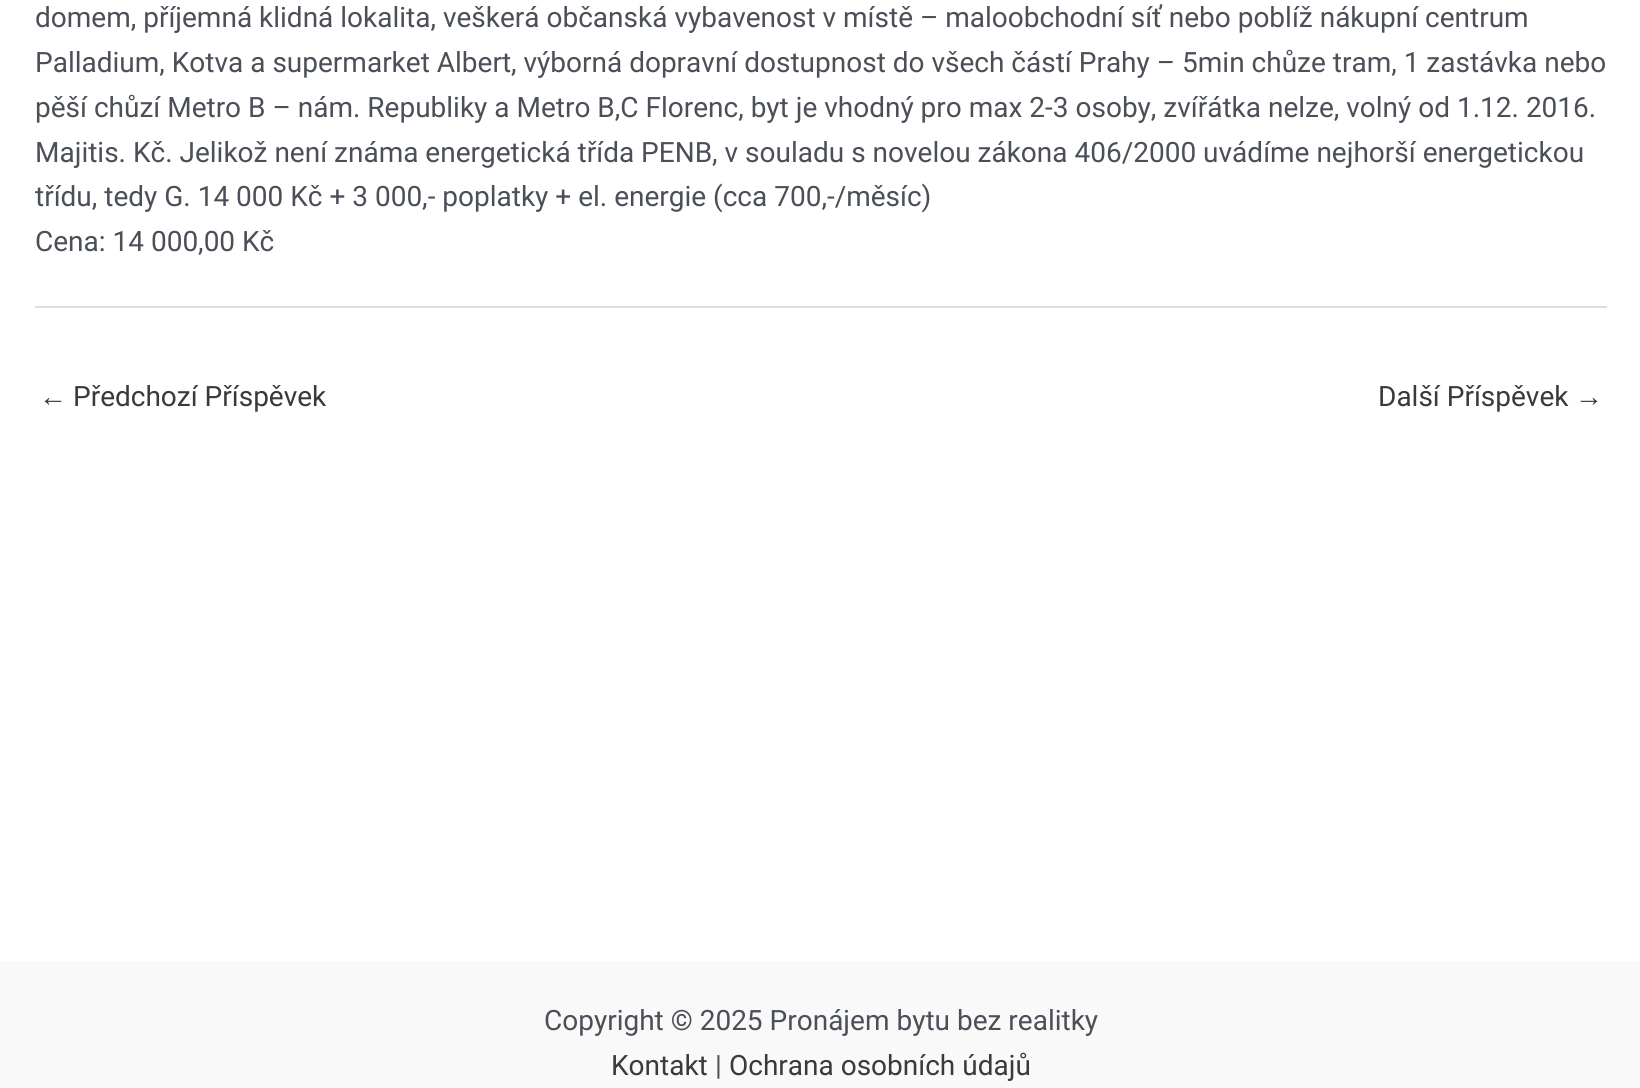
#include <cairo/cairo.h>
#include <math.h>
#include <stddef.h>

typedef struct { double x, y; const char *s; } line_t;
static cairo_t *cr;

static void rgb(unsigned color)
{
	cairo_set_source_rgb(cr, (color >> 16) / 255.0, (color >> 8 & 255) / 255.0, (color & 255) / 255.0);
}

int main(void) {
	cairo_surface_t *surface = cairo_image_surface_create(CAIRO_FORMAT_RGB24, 1640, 1088);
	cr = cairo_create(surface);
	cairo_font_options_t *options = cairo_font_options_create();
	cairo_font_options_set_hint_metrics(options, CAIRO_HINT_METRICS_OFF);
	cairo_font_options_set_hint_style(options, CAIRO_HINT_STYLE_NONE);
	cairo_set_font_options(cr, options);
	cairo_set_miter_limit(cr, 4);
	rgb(0xffffff);
	cairo_paint(cr);
	rgb(0xdddddd);
	cairo_rectangle(cr, 35, 306, 1572, 2);
	cairo_fill(cr);
	rgb(0xf9f9f9);
	cairo_rectangle(cr, 0, 961, 1640, 127);
	cairo_fill(cr);
	cairo_select_font_face(cr, "Roboto", CAIRO_FONT_SLANT_NORMAL, CAIRO_FONT_WEIGHT_NORMAL);
	cairo_set_font_size(cr, 28);
	rgb(0x4b4f58);
	{
		static const line_t items[] = {
			{35, 27, "domem, příjemná klidná lokalita, veškerá občanská vybavenost v místě – maloobchodní síť nebo poblíž nákupní centrum"},
			{35, 72, "Palladium, Kotva a supermarket Albert, výborná dopravní dostupnost do všech částí Prahy – 5min chůze tram, 1 zastávka nebo"},
			{35, 117, "pěší chůzí Metro B – nám. Republiky a Metro B,C Florenc, byt je vhodný pro max 2-3 osoby, zvířátka nelze, volný od 1.12. 2016."},
			{35, 162, "Majitis. Kč. Jelikož není známa energetická třída PENB, v souladu s novelou zákona 406/2000 uvádíme nejhorší energetickou"},
			{35, 206, "třídu, tedy G. 14 000 Kč + 3 000,- poplatky + el. energie (cca 700,-/měsíc)"},
			{35, 251, "Cena: 14 000,00 Kč"},
		};
		for (size_t i = 0; i < sizeof items / sizeof *items; i++) {
			cairo_move_to(cr, items[i].x, items[i].y);
			cairo_show_text(cr, items[i].s);
		}
	}
	cairo_select_font_face(cr, "Liberation Sans", CAIRO_FONT_SLANT_NORMAL, CAIRO_FONT_WEIGHT_NORMAL);
	rgb(0x3a3a3a);
	cairo_move_to(cr, 39, 406);
	cairo_show_text(cr, "←");
	cairo_select_font_face(cr, "Roboto", CAIRO_FONT_SLANT_NORMAL, CAIRO_FONT_WEIGHT_NORMAL);
	cairo_move_to(cr, 73, 406);
	cairo_show_text(cr, "Předchozí Příspěvek");
	cairo_move_to(cr, 1378, 406);
	cairo_show_text(cr, "Další Příspěvek");
	cairo_select_font_face(cr, "Liberation Sans", CAIRO_FONT_SLANT_NORMAL, CAIRO_FONT_WEIGHT_NORMAL);
	cairo_move_to(cr, 1575, 406);
	cairo_show_text(cr, "→");
	cairo_select_font_face(cr, "Roboto", CAIRO_FONT_SLANT_NORMAL, CAIRO_FONT_WEIGHT_NORMAL);
	rgb(0x4b4f58);
	cairo_move_to(cr, 544, 1030);
	cairo_show_text(cr, "Copyright © 2025 Pronájem bytu bez realitky");
	rgb(0x3a3a3a);
	cairo_move_to(cr, 611, 1075);
	cairo_show_text(cr, "Kontakt");
	rgb(0x4b4f58);
	cairo_move_to(cr, 715, 1075);
	cairo_show_text(cr, "|");
	rgb(0x3a3a3a);
	cairo_move_to(cr, 729, 1075);
	cairo_show_text(cr, "Ochrana osobních údajů");
	cairo_surface_write_to_png(surface, "page.png");
	cairo_font_options_destroy(options);
	cairo_destroy(cr);
	cairo_surface_destroy(surface);
	return 0;
}
